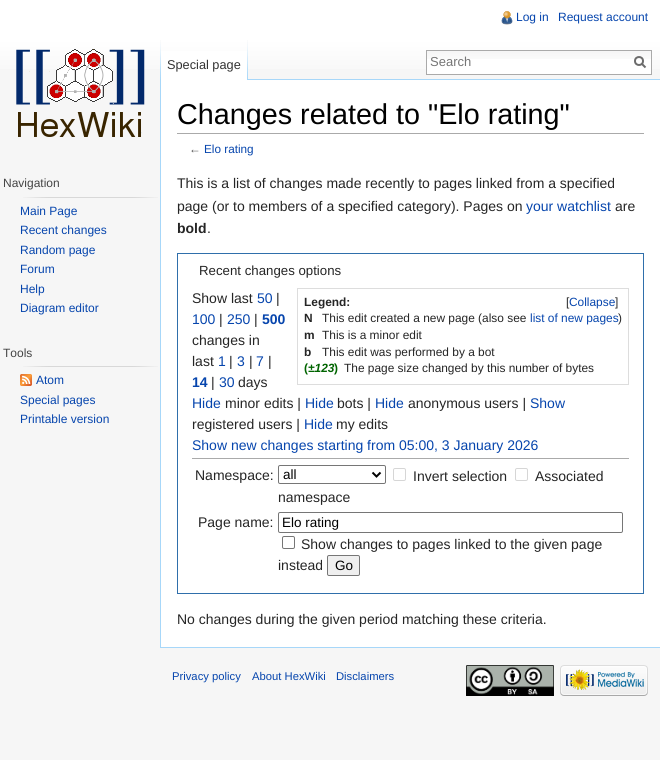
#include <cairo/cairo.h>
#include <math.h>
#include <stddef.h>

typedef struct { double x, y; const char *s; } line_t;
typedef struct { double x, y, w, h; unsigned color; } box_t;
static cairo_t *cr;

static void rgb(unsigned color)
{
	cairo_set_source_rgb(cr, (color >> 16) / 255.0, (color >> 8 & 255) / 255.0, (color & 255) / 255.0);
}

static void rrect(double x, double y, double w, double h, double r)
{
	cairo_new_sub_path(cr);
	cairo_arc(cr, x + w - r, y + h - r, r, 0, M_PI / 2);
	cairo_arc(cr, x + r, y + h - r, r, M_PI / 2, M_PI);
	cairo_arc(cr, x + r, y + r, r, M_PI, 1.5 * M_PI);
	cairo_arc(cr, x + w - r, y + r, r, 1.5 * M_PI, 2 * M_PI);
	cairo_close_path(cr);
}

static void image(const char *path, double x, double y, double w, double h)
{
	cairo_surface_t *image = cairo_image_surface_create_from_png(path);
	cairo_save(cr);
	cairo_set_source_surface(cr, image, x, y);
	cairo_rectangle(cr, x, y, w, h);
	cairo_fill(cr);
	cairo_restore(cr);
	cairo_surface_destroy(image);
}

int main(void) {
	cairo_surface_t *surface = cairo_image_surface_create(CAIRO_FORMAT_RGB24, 660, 760);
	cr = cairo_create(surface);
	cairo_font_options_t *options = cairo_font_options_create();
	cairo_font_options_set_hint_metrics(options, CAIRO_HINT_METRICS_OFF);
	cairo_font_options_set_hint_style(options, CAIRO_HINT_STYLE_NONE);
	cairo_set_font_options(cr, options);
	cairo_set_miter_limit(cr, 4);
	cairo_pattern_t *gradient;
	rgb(0xf6f6f6);
	cairo_paint(cr);
	gradient = cairo_pattern_create_linear(330, 0, 330, 80);
	cairo_pattern_add_color_stop_rgba(gradient, 0.5, 1, 1, 1, 1);
	cairo_pattern_add_color_stop_rgba(gradient, 1, 0.965, 0.965, 0.965, 1);
	cairo_set_source(cr, gradient);
	cairo_pattern_destroy(gradient);
	cairo_rectangle(cr, 0, 0, 660, 69);
	cairo_fill(cr);
	image("img/1.png", 501, 11, 12, 14);
	image("img/2.png", 160, 40, 1, 39);
	rgb(0xffffff);
	cairo_rectangle(cr, 161, 51, 86, 29);
	cairo_fill(cr);
	image("img/3.png", 247, 40, 1, 40);
	cairo_rectangle(cr, 427, 59, 224, 15);
	cairo_fill(cr);
	image("img/4.png", 427, 51, 224, 8);
	cairo_rectangle(cr, 426.5, 50.5, 225, 24);
	rgb(0xaaaaaa);
	cairo_set_line_width(cr, 1);
	cairo_stroke(cr);
	cairo_new_path(cr);
	cairo_move_to(cr, 645.5, 67.5);
	cairo_line_to(cr, 641.5, 63.5);
	rgb(0x6c6c6c);
	cairo_set_line_width(cr, 2);
	cairo_stroke(cr);
	cairo_arc(cr, 639, 61, 4, 0, 2 * M_PI);
	cairo_stroke(cr);
	image("img/5.png", 16, 49, 129, 88);
	image("img/6.png", 23, 197, 135, 1);
	image("img/6.png", 23, 366, 135, 1);
	image("img/7.png", 20, 374, 12, 12);
	{
		static const box_t items[] = {
			{161, 80, 499, 567, 0xffffff},
			{248, 79, 412, 1, 0xa7d7f9},
			{160, 647, 500, 1, 0xa7d7f9},
			{160, 79, 1, 569, 0xa7d7f9},
			{177, 133, 467, 1, 0xaaaaaa},
		};
		for (size_t i = 0; i < sizeof items / sizeof *items; i++) {
			rgb(items[i].color);
			cairo_rectangle(cr, items[i].x, items[i].y, items[i].w, items[i].h);
			cairo_fill(cr);
		}
	}
	cairo_rectangle(cr, 177.5, 253.5, 466, 340);
	rgb(0x2f6fab);
	cairo_set_line_width(cr, 1);
	cairo_stroke(cr);
	cairo_rectangle(cr, 297.5, 288.5, 331, 96);
	rgb(0xdddddd);
	cairo_stroke(cr);
	rgb(0xaaaaaa);
	cairo_rectangle(cr, 192, 458, 437, 1);
	cairo_fill(cr);
	rrect(278.5, 465.5, 107, 18, 1.5);
	rgb(0x767676);
	cairo_stroke(cr);
	cairo_new_path(cr);
	cairo_move_to(cr, 372.5, 472.5);
	cairo_line_to(cr, 376.5, 476.5);
	cairo_line_to(cr, 380.5, 472.5);
	rgb(0x000000);
	cairo_set_line_width(cr, 2);
	cairo_stroke(cr);
	rrect(393.5, 468.5, 12, 12, 1.5);
	rgb(0xd6d6d6);
	cairo_set_line_width(cr, 1);
	cairo_stroke(cr);
	rrect(515.5, 468.5, 12, 12, 1.5);
	cairo_stroke(cr);
	rrect(278.5, 512.5, 344, 20, 1.5);
	rgb(0x767676);
	cairo_stroke(cr);
	rrect(282.5, 536.5, 12, 12, 1.5);
	cairo_stroke(cr);
	rgb(0xefefef);
	rrect(327.5, 555.5, 32, 20, 1.5);
	cairo_fill_preserve(cr);
	rgb(0x767676);
	cairo_stroke(cr);
	image("img/8.png", 466, 665, 88, 31);
	image("img/9.png", 560, 665, 88, 31);
	cairo_select_font_face(cr, "Liberation Sans", CAIRO_FONT_SLANT_NORMAL, CAIRO_FONT_WEIGHT_NORMAL);
	cairo_set_font_size(cr, 12);
	rgb(0x0645ad);
	cairo_move_to(cr, 516, 21);
	cairo_show_text(cr, "Log in");
	cairo_move_to(cr, 558, 21);
	cairo_show_text(cr, "Request account");
	cairo_set_font_size(cr, 12.75);
	rgb(0x333333);
	cairo_move_to(cr, 167, 69);
	cairo_show_text(cr, "Special page");
	cairo_set_font_size(cr, 13);
	rgb(0x757575);
	cairo_move_to(cr, 430, 66);
	cairo_show_text(cr, "Search");
	cairo_set_font_size(cr, 12);
	rgb(0x444444);
	cairo_move_to(cr, 3, 187);
	cairo_show_text(cr, "Navigation");
	rgb(0x0645ad);
	{
		static const line_t items[] = {
			{20, 215, "Main Page"},
			{20, 234, "Recent changes"},
			{20, 254, "Random page"},
			{20, 273, "Forum"},
			{20, 293, "Help"},
			{20, 312, "Diagram editor"},
		};
		for (size_t i = 0; i < sizeof items / sizeof *items; i++) {
			cairo_move_to(cr, items[i].x, items[i].y);
			cairo_show_text(cr, items[i].s);
		}
	}
	rgb(0x444444);
	cairo_move_to(cr, 3, 357);
	cairo_show_text(cr, "Tools");
	rgb(0x0645ad);
	{
		static const line_t items[] = {
			{36, 384, "Atom"},
			{20, 404, "Special pages"},
			{20, 423, "Printable version"},
		};
		for (size_t i = 0; i < sizeof items / sizeof *items; i++) {
			cairo_move_to(cr, items[i].x, items[i].y);
			cairo_show_text(cr, items[i].s);
		}
	}
	cairo_set_font_size(cr, 28.75);
	rgb(0x000000);
	cairo_move_to(cr, 177, 124);
	cairo_show_text(cr, "Changes related to \"Elo rating\"");
	cairo_set_font_size(cr, 11.75);
	rgb(0x545454);
	cairo_move_to(cr, 189, 153);
	cairo_show_text(cr, "←");
	rgb(0x0645ad);
	cairo_move_to(cr, 204, 153);
	cairo_show_text(cr, "Elo rating");
	cairo_set_font_size(cr, 14);
	rgb(0x252525);
	cairo_move_to(cr, 177, 188);
	cairo_show_text(cr, "This is a list of changes made recently to pages linked from a specified");
	cairo_move_to(cr, 177, 211);
	cairo_show_text(cr, "page (or to members of a specified category). Pages on");
	rgb(0x0645ad);
	cairo_move_to(cr, 526, 211);
	cairo_show_text(cr, "your watchlist");
	rgb(0x252525);
	cairo_move_to(cr, 615, 211);
	cairo_show_text(cr, "are");
	cairo_select_font_face(cr, "Liberation Sans", CAIRO_FONT_SLANT_NORMAL, CAIRO_FONT_WEIGHT_BOLD);
	cairo_move_to(cr, 177, 233);
	cairo_show_text(cr, "bold");
	cairo_select_font_face(cr, "Liberation Sans", CAIRO_FONT_SLANT_NORMAL, CAIRO_FONT_WEIGHT_NORMAL);
	cairo_move_to(cr, 207, 233);
	cairo_show_text(cr, ".");
	cairo_set_font_size(cr, 13.25);
	cairo_move_to(cr, 199, 275);
	cairo_show_text(cr, "Recent changes options");
	cairo_set_font_size(cr, 14);
	cairo_move_to(cr, 192, 303);
	cairo_show_text(cr, "Show last");
	rgb(0x0645ad);
	cairo_move_to(cr, 257, 303);
	cairo_show_text(cr, "50");
	rgb(0x252525);
	cairo_move_to(cr, 276, 303);
	cairo_show_text(cr, "|");
	cairo_select_font_face(cr, "Liberation Sans", CAIRO_FONT_SLANT_NORMAL, CAIRO_FONT_WEIGHT_BOLD);
	cairo_set_font_size(cr, 11.9);
	cairo_move_to(cr, 304, 306);
	cairo_show_text(cr, "Legend:");
	cairo_select_font_face(cr, "Liberation Sans", CAIRO_FONT_SLANT_NORMAL, CAIRO_FONT_WEIGHT_NORMAL);
	cairo_move_to(cr, 566, 306);
	cairo_show_text(cr, "[");
	rgb(0x0645ad);
	cairo_move_to(cr, 569, 306);
	cairo_show_text(cr, "Collapse");
	rgb(0x252525);
	cairo_move_to(cr, 615, 306);
	cairo_show_text(cr, "]");
	cairo_select_font_face(cr, "Liberation Sans", CAIRO_FONT_SLANT_NORMAL, CAIRO_FONT_WEIGHT_BOLD);
	cairo_move_to(cr, 304, 322);
	cairo_show_text(cr, "N");
	cairo_select_font_face(cr, "Liberation Sans", CAIRO_FONT_SLANT_NORMAL, CAIRO_FONT_WEIGHT_NORMAL);
	cairo_move_to(cr, 322, 322);
	cairo_show_text(cr, "This edit created a new page (also see");
	rgb(0x0645ad);
	cairo_move_to(cr, 530, 322);
	cairo_show_text(cr, "list of new pages");
	rgb(0x252525);
	cairo_move_to(cr, 618, 322);
	cairo_show_text(cr, ")");
	cairo_select_font_face(cr, "Liberation Sans", CAIRO_FONT_SLANT_NORMAL, CAIRO_FONT_WEIGHT_BOLD);
	cairo_move_to(cr, 304, 339);
	cairo_show_text(cr, "m");
	cairo_select_font_face(cr, "Liberation Sans", CAIRO_FONT_SLANT_NORMAL, CAIRO_FONT_WEIGHT_NORMAL);
	cairo_move_to(cr, 322, 339);
	cairo_show_text(cr, "This is a minor edit");
	cairo_select_font_face(cr, "Liberation Sans", CAIRO_FONT_SLANT_NORMAL, CAIRO_FONT_WEIGHT_BOLD);
	cairo_move_to(cr, 304, 356);
	cairo_show_text(cr, "b");
	cairo_select_font_face(cr, "Liberation Sans", CAIRO_FONT_SLANT_NORMAL, CAIRO_FONT_WEIGHT_NORMAL);
	cairo_move_to(cr, 322, 356);
	cairo_show_text(cr, "This edit was performed by a bot");
	cairo_select_font_face(cr, "Liberation Sans", CAIRO_FONT_SLANT_NORMAL, CAIRO_FONT_WEIGHT_BOLD);
	rgb(0x006400);
	cairo_move_to(cr, 304, 372);
	cairo_show_text(cr, "(");
	cairo_select_font_face(cr, "Liberation Sans", CAIRO_FONT_SLANT_ITALIC, CAIRO_FONT_WEIGHT_BOLD);
	cairo_move_to(cr, 308, 372);
	cairo_show_text(cr, "±123");
	cairo_select_font_face(cr, "Liberation Sans", CAIRO_FONT_SLANT_NORMAL, CAIRO_FONT_WEIGHT_BOLD);
	cairo_move_to(cr, 334, 372);
	cairo_show_text(cr, ")");
	cairo_select_font_face(cr, "Liberation Sans", CAIRO_FONT_SLANT_NORMAL, CAIRO_FONT_WEIGHT_NORMAL);
	rgb(0x252525);
	cairo_move_to(cr, 344, 372);
	cairo_show_text(cr, "The page size changed by this number of bytes");
	cairo_set_font_size(cr, 14);
	rgb(0x0645ad);
	cairo_move_to(cr, 192, 324);
	cairo_show_text(cr, "100");
	rgb(0x252525);
	cairo_move_to(cr, 219, 324);
	cairo_show_text(cr, "|");
	rgb(0x0645ad);
	cairo_move_to(cr, 227, 324);
	cairo_show_text(cr, "250");
	rgb(0x252525);
	cairo_move_to(cr, 254, 324);
	cairo_show_text(cr, "|");
	cairo_select_font_face(cr, "Liberation Sans", CAIRO_FONT_SLANT_NORMAL, CAIRO_FONT_WEIGHT_BOLD);
	rgb(0x0645ad);
	cairo_move_to(cr, 262, 324);
	cairo_show_text(cr, "500");
	cairo_select_font_face(cr, "Liberation Sans", CAIRO_FONT_SLANT_NORMAL, CAIRO_FONT_WEIGHT_NORMAL);
	rgb(0x252525);
	cairo_move_to(cr, 192, 345);
	cairo_show_text(cr, "changes in");
	cairo_move_to(cr, 192, 366);
	cairo_show_text(cr, "last");
	rgb(0x0645ad);
	cairo_move_to(cr, 218, 366);
	cairo_show_text(cr, "1");
	rgb(0x252525);
	cairo_move_to(cr, 229, 366);
	cairo_show_text(cr, "|");
	rgb(0x0645ad);
	cairo_move_to(cr, 237, 366);
	cairo_show_text(cr, "3");
	rgb(0x252525);
	cairo_move_to(cr, 249, 366);
	cairo_show_text(cr, "|");
	rgb(0x0645ad);
	cairo_move_to(cr, 256, 366);
	cairo_show_text(cr, "7");
	rgb(0x252525);
	cairo_move_to(cr, 268, 366);
	cairo_show_text(cr, "|");
	cairo_select_font_face(cr, "Liberation Sans", CAIRO_FONT_SLANT_NORMAL, CAIRO_FONT_WEIGHT_BOLD);
	rgb(0x0645ad);
	cairo_move_to(cr, 192, 387);
	cairo_show_text(cr, "14");
	cairo_select_font_face(cr, "Liberation Sans", CAIRO_FONT_SLANT_NORMAL, CAIRO_FONT_WEIGHT_NORMAL);
	rgb(0x252525);
	cairo_move_to(cr, 211, 387);
	cairo_show_text(cr, "|");
	rgb(0x0645ad);
	cairo_move_to(cr, 219, 387);
	cairo_show_text(cr, "30");
	rgb(0x252525);
	cairo_move_to(cr, 238, 387);
	cairo_show_text(cr, "days");
	rgb(0x0645ad);
	cairo_move_to(cr, 192, 408);
	cairo_show_text(cr, "Hide");
	rgb(0x252525);
	cairo_move_to(cr, 225, 408);
	cairo_show_text(cr, "minor edits |");
	rgb(0x0645ad);
	cairo_move_to(cr, 305, 408);
	cairo_show_text(cr, "Hide");
	rgb(0x252525);
	cairo_move_to(cr, 337, 408);
	cairo_show_text(cr, "bots |");
	rgb(0x0645ad);
	cairo_move_to(cr, 375, 408);
	cairo_show_text(cr, "Hide");
	rgb(0x252525);
	cairo_move_to(cr, 408, 408);
	cairo_show_text(cr, "anonymous users |");
	rgb(0x0645ad);
	cairo_move_to(cr, 530, 408);
	cairo_show_text(cr, "Show");
	rgb(0x252525);
	cairo_move_to(cr, 192, 429);
	cairo_show_text(cr, "registered users |");
	rgb(0x0645ad);
	cairo_move_to(cr, 304, 429);
	cairo_show_text(cr, "Hide");
	rgb(0x252525);
	cairo_move_to(cr, 336, 429);
	cairo_show_text(cr, "my edits");
	rgb(0x0645ad);
	cairo_move_to(cr, 192, 450);
	cairo_show_text(cr, "Show new changes starting from 05:00, 3 January 2026");
	rgb(0x252525);
	cairo_move_to(cr, 195, 480);
	cairo_show_text(cr, "Namespace:");
	cairo_set_font_size(cr, 13.5);
	rgb(0x000000);
	cairo_move_to(cr, 283, 479);
	cairo_show_text(cr, "all");
	cairo_set_font_size(cr, 14);
	rgb(0x252525);
	{
		static const line_t items[] = {
			{413, 481, "Invert selection"},
			{535, 481, "Associated"},
			{278, 502, "namespace"},
			{198, 527, "Page name:"},
		};
		for (size_t i = 0; i < sizeof items / sizeof *items; i++) {
			cairo_move_to(cr, items[i].x, items[i].y);
			cairo_show_text(cr, items[i].s);
		}
	}
	cairo_set_font_size(cr, 13.5);
	rgb(0x000000);
	cairo_move_to(cr, 282, 527);
	cairo_show_text(cr, "Elo rating");
	cairo_set_font_size(cr, 14);
	rgb(0x252525);
	cairo_move_to(cr, 301, 549);
	cairo_show_text(cr, "Show changes to pages linked to the given page");
	cairo_move_to(cr, 278, 570);
	cairo_show_text(cr, "instead");
	cairo_set_font_size(cr, 13.5);
	rgb(0x000000);
	cairo_move_to(cr, 335, 570);
	cairo_show_text(cr, "Go");
	cairo_set_font_size(cr, 14);
	rgb(0x252525);
	cairo_move_to(cr, 177, 624);
	cairo_show_text(cr, "No changes during the given period matching these criteria.");
	cairo_set_font_size(cr, 11.25);
	rgb(0x0645ad);
	{
		static const line_t items[] = {
			{172, 680, "Privacy policy"},
			{252, 680, "About HexWiki"},
			{336, 680, "Disclaimers"},
		};
		for (size_t i = 0; i < sizeof items / sizeof *items; i++) {
			cairo_move_to(cr, items[i].x, items[i].y);
			cairo_show_text(cr, items[i].s);
		}
	}
	cairo_surface_write_to_png(surface, "page.png");
	cairo_font_options_destroy(options);
	cairo_destroy(cr);
	cairo_surface_destroy(surface);
	return 0;
}
